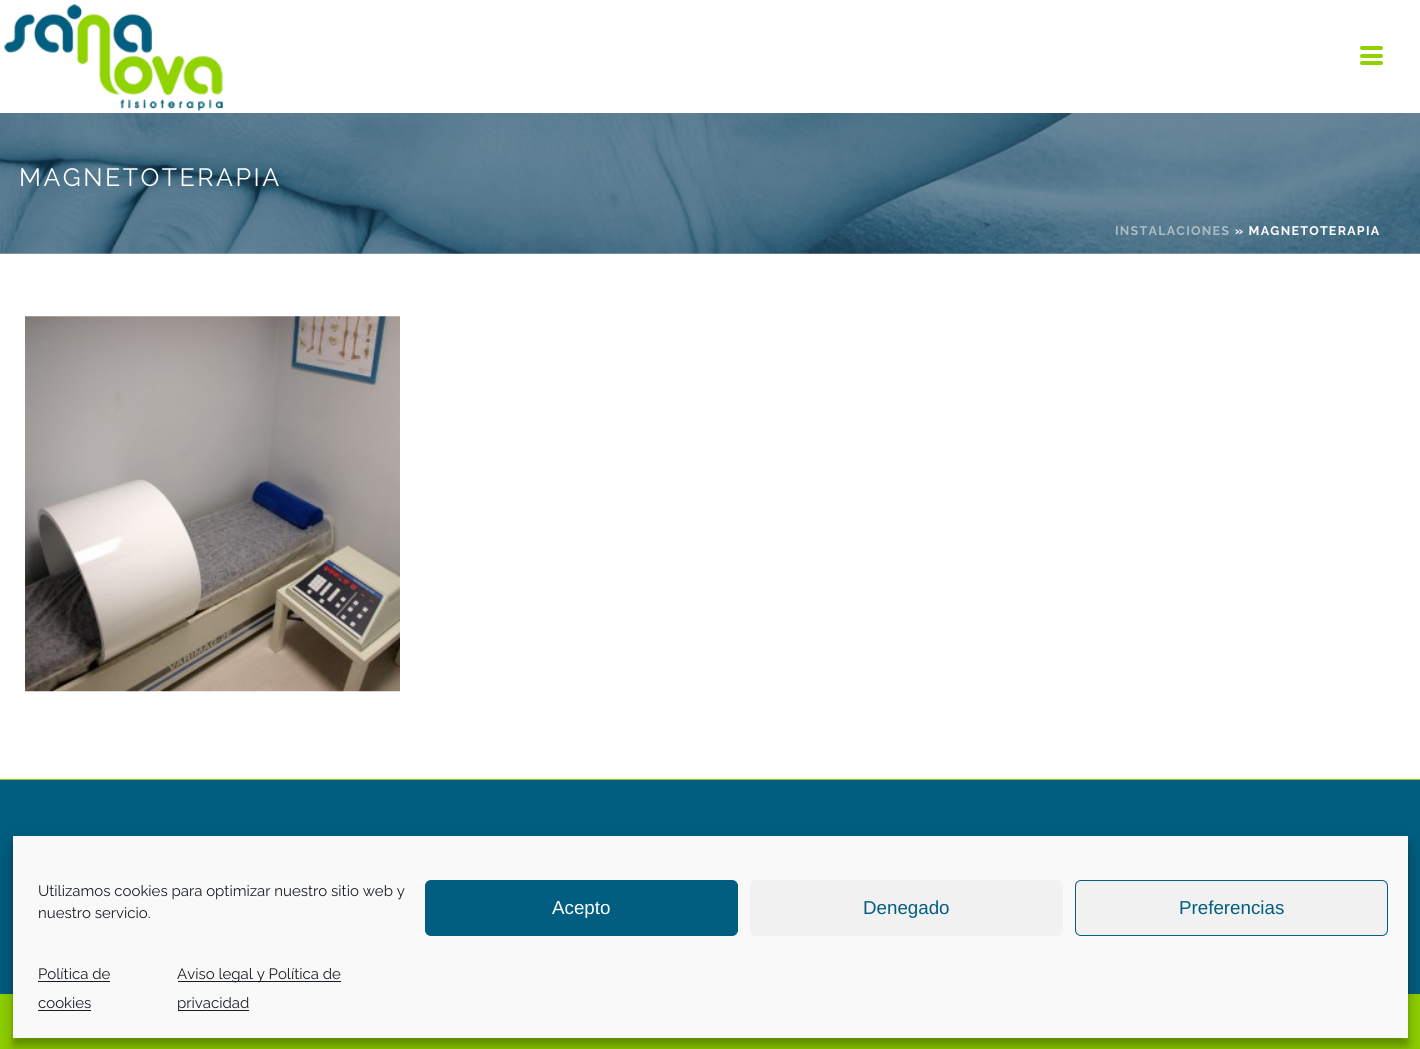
#include <cairo/cairo.h>
#include <math.h>
#include <stddef.h>

typedef struct { double x, y; const char *s; } line_t;
typedef struct { double x, y, w, h; unsigned color; } box_t;
static cairo_t *cr;

static void rgb(unsigned color)
{
	cairo_set_source_rgb(cr, (color >> 16) / 255.0, (color >> 8 & 255) / 255.0, (color & 255) / 255.0);
}

static void tracked(double x, double y, const char *s, double letter, double word)
{
	cairo_move_to(cr, x, y);
	while (*s) {
		char ch[5] = {0};
		int n = 0;
		do ch[n++] = *s++; while ((*s & 0xC0) == 0x80);
		cairo_show_text(cr, ch);
		cairo_rel_move_to(cr, letter + word * (*ch == ' '), 0);
	}
}

static void rrect(double x, double y, double w, double h, double r)
{
	cairo_new_sub_path(cr);
	cairo_arc(cr, x + w - r, y + h - r, r, 0, M_PI / 2);
	cairo_arc(cr, x + r, y + h - r, r, M_PI / 2, M_PI);
	cairo_arc(cr, x + r, y + r, r, M_PI, 1.5 * M_PI);
	cairo_arc(cr, x + w - r, y + r, r, 1.5 * M_PI, 2 * M_PI);
	cairo_close_path(cr);
}

static void soft_shadow(double x, double y, double w, double h, double r, double blur, double alpha)
{
	cairo_push_group_with_content(cr, CAIRO_CONTENT_ALPHA);
	cairo_set_operator(cr, CAIRO_OPERATOR_SOURCE);
	for (int i = 15; i >= -15 && fmin(w, h) + blur * i / 3 > 0; i -= 2) {
		double e = blur * i / 6;
		cairo_set_source_rgba(cr, 0, 0, 0, alpha * erfc((i - 1) / 8.5) / 2);
		rrect(x - e, y - e, w + 2 * e, h + 2 * e, fmax(0, fmin(r + e + blur * .6, fmin(w, h) / 2 + e)));
		cairo_fill(cr);
	}
	cairo_pattern_t *soft = cairo_pop_group(cr);
	cairo_mask(cr, soft);
	cairo_pattern_destroy(soft);
}

static void image(const char *path, double x, double y, double w, double h)
{
	cairo_surface_t *image = cairo_image_surface_create_from_png(path);
	cairo_save(cr);
	cairo_set_source_surface(cr, image, x, y);
	cairo_rectangle(cr, x, y, w, h);
	cairo_fill(cr);
	cairo_restore(cr);
	cairo_surface_destroy(image);
}

int main(void) {
	cairo_surface_t *surface = cairo_image_surface_create(CAIRO_FORMAT_RGB24, 1420, 1049);
	cr = cairo_create(surface);
	cairo_font_options_t *options = cairo_font_options_create();
	cairo_font_options_set_hint_metrics(options, CAIRO_HINT_METRICS_OFF);
	cairo_font_options_set_hint_style(options, CAIRO_HINT_STYLE_NONE);
	cairo_set_font_options(cr, options);
	cairo_set_miter_limit(cr, 4);
	rgb(0xffffff);
	cairo_paint(cr);
	image("img/1.png", 0, 113, 1420, 141);
	image("img/2.png", 4, 4, 219, 107);
	rgb(0x91d300);
	rrect(1360, 46, 23, 4, 2);
	cairo_fill(cr);
	rrect(1360, 54, 23, 4, 2);
	cairo_fill(cr);
	rrect(1360, 61, 23, 4, 2);
	cairo_fill(cr);
	image("img/3.png", 25, 316, 375, 376);
	{
		static const box_t items[] = {
			{0, 780, 1420, 214, 0x015e80},
			{0, 779, 1420, 1, 0x91d300},
			{0, 994, 1420, 55, 0x91d300},
		};
		for (size_t i = 0; i < sizeof items / sizeof *items; i++) {
			rgb(items[i].color);
			cairo_rectangle(cr, items[i].x, items[i].y, items[i].w, items[i].h);
			cairo_fill(cr);
		}
	}
	rgb(0x000000);
	soft_shadow(13, 844, 1395, 201, 0, 4, 0.23);
	soft_shadow(13, 849, 1395, 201, 0, 12.5, 0.19);
	rgb(0xf9f9f9);
	cairo_rectangle(cr, 13, 836, 1395, 202);
	cairo_fill(cr);
	rgb(0x015e80);
	rrect(425.5, 880.5, 312, 55, 5.5);
	cairo_fill_preserve(cr);
	cairo_set_line_width(cr, 1);
	cairo_stroke(cr);
	rgb(0xf1f1f1);
	rrect(750, 880, 313, 56, 6);
	cairo_fill(cr);
	rrect(1075.5, 880.5, 312, 55, 5.5);
	cairo_fill_preserve(cr);
	rgb(0x015e80);
	cairo_stroke(cr);
	{
		static const box_t items[] = {
			{38, 981, 72, 1, 0x191e23},
			{38, 1010, 53, 1, 0x191e23},
			{178, 981, 163, 1, 0x191e23},
			{178, 1010, 71, 1, 0x191e23},
		};
		for (size_t i = 0; i < sizeof items / sizeof *items; i++) {
			rgb(items[i].color);
			cairo_rectangle(cr, items[i].x, items[i].y, items[i].w, items[i].h);
			cairo_fill(cr);
		}
	}
	cairo_select_font_face(cr, "Raleway", CAIRO_FONT_SLANT_NORMAL, CAIRO_FONT_WEIGHT_NORMAL);
	cairo_set_font_size(cr, 25);
	rgb(0xffffff);
	tracked(19, 186, "MAGNETOTERAPIA", 2.5, 0);
	cairo_select_font_face(cr, "Raleway", CAIRO_FONT_SLANT_NORMAL, CAIRO_FONT_WEIGHT_BOLD);
	cairo_set_font_size(cr, 12.5);
	rgb(0xaabcc6);
	tracked(1115, 235, "INSTALACIONES", 1.25, 0);
	rgb(0xffffff);
	tracked(1235, 235, "» MAGNETOTERAPIA", 1.25, 0);
	cairo_select_font_face(cr, "Raleway", CAIRO_FONT_SLANT_NORMAL, CAIRO_FONT_WEIGHT_NORMAL);
	cairo_set_font_size(cr, 15);
	rgb(0x191e23);
	cairo_move_to(cr, 38, 896);
	cairo_show_text(cr, "Utilizamos cookies para optimizar nuestro sitio web y");
	cairo_move_to(cr, 38, 918);
	cairo_show_text(cr, "nuestro servicio.");
	cairo_select_font_face(cr, "Liberation Sans", CAIRO_FONT_SLANT_NORMAL, CAIRO_FONT_WEIGHT_NORMAL);
	cairo_set_font_size(cr, 18.75);
	rgb(0xffffff);
	cairo_move_to(cr, 552, 914);
	cairo_show_text(cr, "Acepto");
	rgb(0x015e80);
	cairo_move_to(cr, 863, 914);
	cairo_show_text(cr, "Denegado");
	cairo_move_to(cr, 1179, 914);
	cairo_show_text(cr, "Preferencias");
	cairo_select_font_face(cr, "Raleway", CAIRO_FONT_SLANT_NORMAL, CAIRO_FONT_WEIGHT_NORMAL);
	cairo_set_font_size(cr, 15);
	rgb(0x191e23);
	{
		static const line_t items[] = {
			{38, 979, "Política de"},
			{38, 1008, "cookies"},
			{177, 979, "Aviso legal y Política de"},
			{177, 1008, "privacidad"},
		};
		for (size_t i = 0; i < sizeof items / sizeof *items; i++) {
			cairo_move_to(cr, items[i].x, items[i].y);
			cairo_show_text(cr, items[i].s);
		}
	}
	cairo_surface_write_to_png(surface, "page.png");
	cairo_font_options_destroy(options);
	cairo_destroy(cr);
	cairo_surface_destroy(surface);
	return 0;
}
